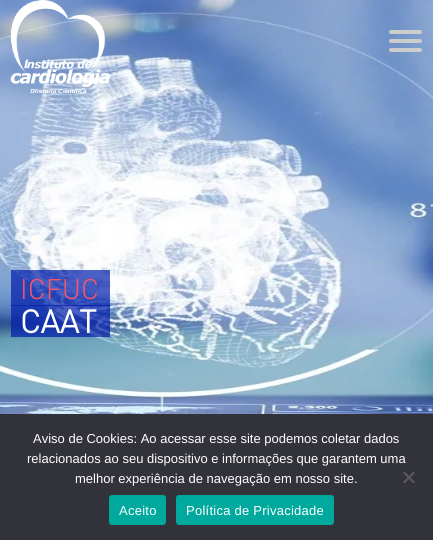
#include <cairo/cairo.h>
#include <math.h>
#include <stddef.h>

typedef struct { double x, y; const char *s; } line_t;
static cairo_t *cr;

static void rgb(unsigned color)
{
	cairo_set_source_rgb(cr, (color >> 16) / 255.0, (color >> 8 & 255) / 255.0, (color & 255) / 255.0);
}

static void tracked(double x, double y, const char *s, double letter, double word)
{
	cairo_move_to(cr, x, y);
	while (*s) {
		char ch[5] = {0};
		int n = 0;
		do ch[n++] = *s++; while ((*s & 0xC0) == 0x80);
		cairo_show_text(cr, ch);
		cairo_rel_move_to(cr, letter + word * (*ch == ' '), 0);
	}
}

static void rrect(double x, double y, double w, double h, double r)
{
	cairo_new_sub_path(cr);
	cairo_arc(cr, x + w - r, y + h - r, r, 0, M_PI / 2);
	cairo_arc(cr, x + r, y + h - r, r, M_PI / 2, M_PI);
	cairo_arc(cr, x + r, y + r, r, M_PI, 1.5 * M_PI);
	cairo_arc(cr, x + w - r, y + r, r, 1.5 * M_PI, 2 * M_PI);
	cairo_close_path(cr);
}

static void image(const char *path, double x, double y, double w, double h)
{
	cairo_surface_t *image = cairo_image_surface_create_from_png(path);
	cairo_save(cr);
	cairo_set_source_surface(cr, image, x, y);
	cairo_rectangle(cr, x, y, w, h);
	cairo_fill(cr);
	cairo_restore(cr);
	cairo_surface_destroy(image);
}

int main(void) {
	cairo_surface_t *surface = cairo_image_surface_create(CAIRO_FORMAT_RGB24, 433, 540);
	cr = cairo_create(surface);
	cairo_font_options_t *options = cairo_font_options_create();
	cairo_font_options_set_hint_metrics(options, CAIRO_HINT_METRICS_OFF);
	cairo_font_options_set_hint_style(options, CAIRO_HINT_STYLE_NONE);
	cairo_set_font_options(cr, options);
	cairo_set_miter_limit(cr, 4);
	rgb(0xffffff);
	cairo_paint(cr);
	image("img/2.png", 0, 0, 433, 414);
	image("img/1.png", 10, 0, 100, 93);
	rgb(0xcdcdcd);
	rrect(389, 30, 33, 4, 2);
	cairo_fill(cr);
	rrect(389, 39, 33, 4, 2);
	cairo_fill(cr);
	rrect(389, 48, 33, 4, 2);
	cairo_fill(cr);
	cairo_set_source_rgba(cr, 0, 0.114, 0.671, 0.7);
	cairo_rectangle(cr, 11, 305, 99, 32);
	cairo_fill(cr);
	cairo_rectangle(cr, 11, 270, 99, 36);
	cairo_fill(cr);
	rgb(0x32323a);
	cairo_rectangle(cr, 0, 414, 433, 126);
	cairo_fill(cr);
	rgb(0x59595d);
	cairo_new_path(cr);
	cairo_move_to(cr, 413.5, 471.5);
	cairo_line_to(cr, 415, 473);
	cairo_line_to(cr, 404.5, 483.5);
	cairo_line_to(cr, 403, 482);
	cairo_close_path(cr);
	cairo_fill(cr);
	cairo_new_path(cr);
	cairo_move_to(cr, 403, 473);
	cairo_line_to(cr, 404.5, 471.5);
	cairo_line_to(cr, 415, 482);
	cairo_line_to(cr, 413.5, 483.5);
	cairo_close_path(cr);
	cairo_fill(cr);
	rgb(0x00a99d);
	rrect(109, 495, 57, 30, 3);
	cairo_fill(cr);
	rrect(176, 495, 158, 30, 3);
	cairo_fill(cr);
	cairo_select_font_face(cr, "DIN Light", CAIRO_FONT_SLANT_NORMAL, CAIRO_FONT_WEIGHT_NORMAL);
	cairo_set_font_size(cr, 28);
	rgb(0xff5663);
	cairo_move_to(cr, 20, 299);
	cairo_show_text(cr, "ICFUC");
	cairo_select_font_face(cr, "DIN", CAIRO_FONT_SLANT_NORMAL, CAIRO_FONT_WEIGHT_BOLD);
	cairo_set_font_size(cr, 32);
	rgb(0xffffff);
	cairo_move_to(cr, 20, 333);
	cairo_show_text(cr, "CAAT");
	cairo_select_font_face(cr, "Liberation Sans", CAIRO_FONT_SLANT_NORMAL, CAIRO_FONT_WEIGHT_NORMAL);
	cairo_set_font_size(cr, 13);
	{
		static const line_t items[] = {
			{33, 443, "Aviso de Cookies: Ao acessar esse site podemos coletar dados"},
			{27, 463, "relacionados ao seu dispositivo e informações que garantem uma"},
			{75, 483, "melhor experiência de navegação em nosso site."},
		};
		for (size_t i = 0; i < sizeof items / sizeof *items; i++) {
			cairo_move_to(cr, items[i].x, items[i].y);
			cairo_show_text(cr, items[i].s);
		}
	}
	tracked(119, 515, "Aceito", 0.25, 0);
	tracked(186, 515, "Política de Privacidade", 0.25, 0);
	cairo_surface_write_to_png(surface, "page.png");
	cairo_font_options_destroy(options);
	cairo_destroy(cr);
	cairo_surface_destroy(surface);
	return 0;
}
